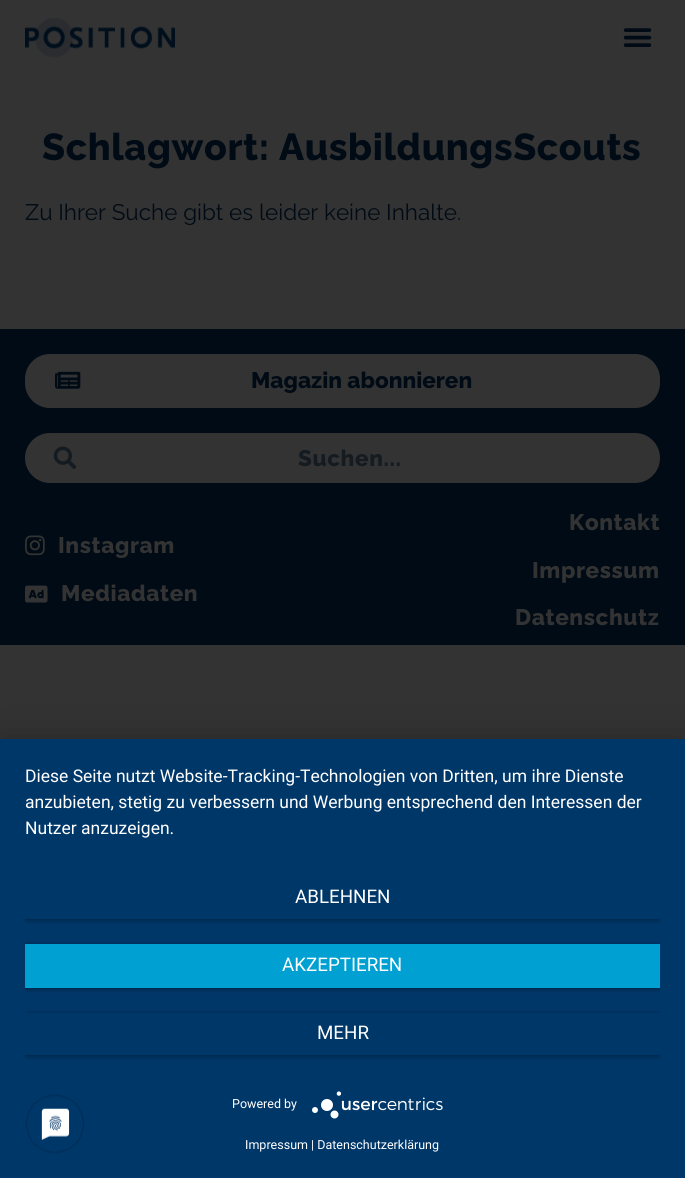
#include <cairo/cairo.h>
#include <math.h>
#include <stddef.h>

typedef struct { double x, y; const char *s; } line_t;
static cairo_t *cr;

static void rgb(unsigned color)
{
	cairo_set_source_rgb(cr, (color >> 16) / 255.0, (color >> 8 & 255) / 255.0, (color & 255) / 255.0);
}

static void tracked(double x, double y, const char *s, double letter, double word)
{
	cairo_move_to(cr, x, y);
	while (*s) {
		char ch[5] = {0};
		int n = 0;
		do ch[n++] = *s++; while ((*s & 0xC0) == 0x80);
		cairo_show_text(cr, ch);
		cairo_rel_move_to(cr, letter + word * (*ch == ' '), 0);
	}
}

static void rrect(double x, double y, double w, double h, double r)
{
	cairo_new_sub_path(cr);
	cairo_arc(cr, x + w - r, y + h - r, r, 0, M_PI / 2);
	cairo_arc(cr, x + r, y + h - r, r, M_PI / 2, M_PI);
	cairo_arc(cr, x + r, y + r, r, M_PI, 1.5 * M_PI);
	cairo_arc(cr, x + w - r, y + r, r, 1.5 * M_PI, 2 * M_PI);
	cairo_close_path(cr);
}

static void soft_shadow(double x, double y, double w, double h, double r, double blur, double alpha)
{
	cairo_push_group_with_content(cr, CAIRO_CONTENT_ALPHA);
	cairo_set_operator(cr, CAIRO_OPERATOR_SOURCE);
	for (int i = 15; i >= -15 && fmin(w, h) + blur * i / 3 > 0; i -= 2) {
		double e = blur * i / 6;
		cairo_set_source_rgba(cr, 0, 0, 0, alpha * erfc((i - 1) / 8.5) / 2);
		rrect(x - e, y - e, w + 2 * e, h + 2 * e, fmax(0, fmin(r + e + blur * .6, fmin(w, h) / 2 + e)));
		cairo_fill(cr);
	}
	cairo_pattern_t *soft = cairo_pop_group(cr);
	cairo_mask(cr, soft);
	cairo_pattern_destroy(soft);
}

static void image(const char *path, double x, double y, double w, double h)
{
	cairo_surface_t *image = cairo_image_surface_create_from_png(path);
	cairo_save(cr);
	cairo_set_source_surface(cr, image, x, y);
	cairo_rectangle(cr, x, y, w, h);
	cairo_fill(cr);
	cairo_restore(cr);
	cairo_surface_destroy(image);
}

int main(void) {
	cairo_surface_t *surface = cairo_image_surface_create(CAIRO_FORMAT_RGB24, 685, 1178);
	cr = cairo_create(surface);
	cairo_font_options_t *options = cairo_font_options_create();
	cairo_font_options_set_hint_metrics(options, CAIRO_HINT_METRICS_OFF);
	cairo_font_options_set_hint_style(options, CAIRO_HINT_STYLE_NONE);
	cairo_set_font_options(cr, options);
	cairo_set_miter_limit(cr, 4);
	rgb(0x333333);
	cairo_paint(cr);
	image("img/1.png", 25, 17, 150, 41);
	image("img/2.png", 623, 28, 29, 19);
	rgb(0x000b15);
	cairo_rectangle(cr, 0, 329, 685, 316);
	cairo_fill(cr);
	rgb(0x333333);
	rrect(25, 354, 635, 54, 25);
	cairo_fill(cr);
	image("img/3.png", 55, 371, 26, 18);
	rrect(25, 433, 635, 50, 25);
	cairo_fill(cr);
	image("img/4.png", 53, 446, 24, 23);
	image("img/5.png", 25, 535, 20, 21);
	image("img/6.png", 25, 585, 23, 18);
	rgb(0x000000);
	soft_shadow(0, 746, 685, 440, 0, 22.5, 0.3);
	rgb(0x003769);
	cairo_rectangle(cr, 0, 739, 685, 439);
	cairo_fill(cr);
	cairo_save(cr);
	cairo_rectangle(cr, 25, 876, 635, 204);
	cairo_clip(cr);
	rgb(0x000000);
	soft_shadow(25, 878, 635, 42, 0, 2.5, 0.4);
	cairo_restore(cr);
	cairo_rectangle(cr, 25, 876, 635, 43);
	cairo_fill(cr);
	cairo_save(cr);
	cairo_rectangle(cr, 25, 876, 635, 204);
	cairo_clip(cr);
	rgb(0x000000);
	soft_shadow(25, 945, 635, 44, 0, 2.5, 0.4);
	cairo_restore(cr);
	rgb(0x00a0d2);
	cairo_rectangle(cr, 25, 944, 635, 44);
	cairo_fill(cr);
	cairo_save(cr);
	cairo_rectangle(cr, 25, 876, 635, 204);
	cairo_clip(cr);
	cairo_set_fill_rule(cr, CAIRO_FILL_RULE_EVEN_ODD);
	cairo_new_path(cr);
	cairo_move_to(cr, 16, 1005);
	cairo_line_to(cr, 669, 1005);
	cairo_line_to(cr, 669, 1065);
	cairo_line_to(cr, 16, 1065);
	cairo_close_path(cr);
	cairo_move_to(cr, 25, 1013);
	cairo_line_to(cr, 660, 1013);
	cairo_line_to(cr, 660, 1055);
	cairo_line_to(cr, 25, 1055);
	cairo_close_path(cr);
	cairo_clip(cr);
	rgb(0x000000);
	soft_shadow(25, 1014, 635, 42, 0, 2.5, 0.4);
	cairo_restore(cr);
	image("img/7.png", 312, 1091, 131, 28);
	image("img/8.png", 25, 1094, 60, 59);
	cairo_select_font_face(cr, "Raleway Thin", CAIRO_FONT_SLANT_NORMAL, CAIRO_FONT_WEIGHT_NORMAL);
	cairo_set_font_size(cr, 37.5);
	rgb(0x000b15);
	tracked(42, 160, "Schlagwort: AusbildungsScouts", 0.6, 0);
	cairo_select_font_face(cr, "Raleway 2 Thin", CAIRO_FONT_SLANT_NORMAL, CAIRO_FONT_WEIGHT_NORMAL);
	cairo_set_font_size(cr, 22.5);
	cairo_move_to(cr, 25, 220);
	cairo_show_text(cr, "Zu Ihrer Suche gibt es leider keine Inhalte.");
	cairo_select_font_face(cr, "Raleway Thin", CAIRO_FONT_SLANT_NORMAL, CAIRO_FONT_WEIGHT_NORMAL);
	cairo_move_to(cr, 251, 388);
	cairo_show_text(cr, "Magazin abonnieren");
	rgb(0x141b21);
	tracked(298, 466, "Suchen...", 0.6, 0);
	rgb(0x333333);
	{
		static const line_t items[] = {
			{58, 553, "Instagram"},
			{61, 601, "Mediadaten"},
			{569, 530, "Kontakt"},
			{532, 578, "Impressum"},
			{515, 625, "Datenschutz"},
		};
		for (size_t i = 0; i < sizeof items / sizeof *items; i++) {
			tracked(items[i].x, items[i].y, items[i].s, 0.6, 0);
		}
	}
	cairo_select_font_face(cr, "Roboto", CAIRO_FONT_SLANT_NORMAL, CAIRO_FONT_WEIGHT_NORMAL);
	cairo_set_font_size(cr, 17.5);
	rgb(0xffffff);
	{
		static const line_t items[] = {
			{25, 782, "Diese Seite nutzt Website-Tracking-Technologien von Dritten, um ihre Dienste"},
			{25, 808, "anzubieten, stetig zu verbessern und Werbung entsprechend den Interessen der"},
			{25, 834, "Nutzer anzuzeigen."},
		};
		for (size_t i = 0; i < sizeof items / sizeof *items; i++) {
			cairo_move_to(cr, items[i].x, items[i].y);
			cairo_show_text(cr, items[i].s);
		}
	}
	cairo_set_font_size(cr, 18.75);
	{
		static const line_t items[] = {
			{295, 903, "ABLEHNEN"},
			{282, 971, "AKZEPTIEREN"},
			{317, 1039, "MEHR"},
		};
		for (size_t i = 0; i < sizeof items / sizeof *items; i++) {
			cairo_move_to(cr, items[i].x, items[i].y);
			cairo_show_text(cr, items[i].s);
		}
	}
	cairo_set_font_size(cr, 12.5);
	cairo_move_to(cr, 232, 1108);
	cairo_show_text(cr, "Powered by");
	cairo_move_to(cr, 245, 1149);
	cairo_show_text(cr, "Impressum | Datenschutzerklärung");
	cairo_surface_write_to_png(surface, "page.png");
	cairo_font_options_destroy(options);
	cairo_destroy(cr);
	cairo_surface_destroy(surface);
	return 0;
}
